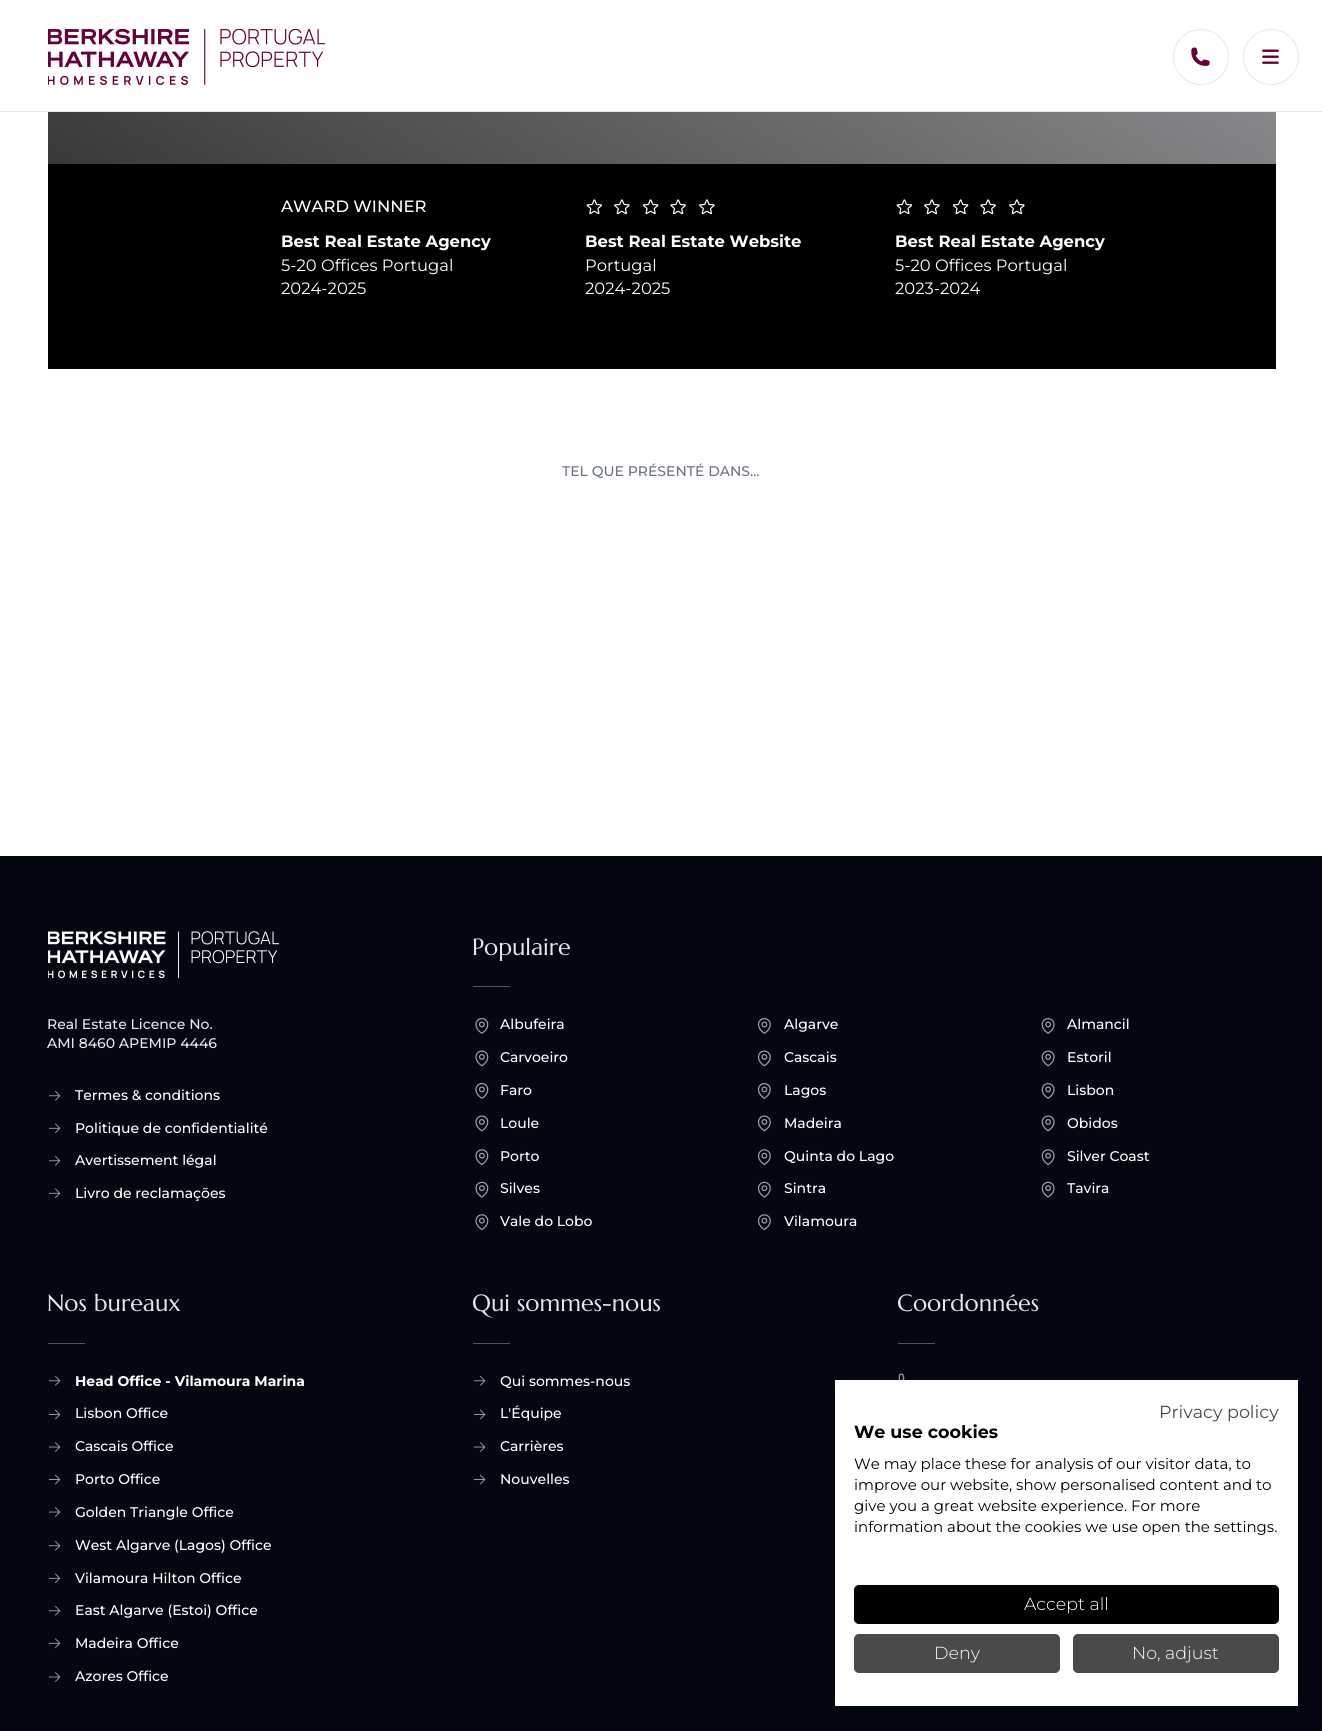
#include <cairo/cairo.h>
#include <math.h>
#include <stddef.h>

typedef struct { double x, y; const char *s; } line_t;
static cairo_t *cr;

static void rgb(unsigned color)
{
	cairo_set_source_rgb(cr, (color >> 16) / 255.0, (color >> 8 & 255) / 255.0, (color & 255) / 255.0);
}

static void rrect(double x, double y, double w, double h, double r)
{
	cairo_new_sub_path(cr);
	cairo_arc(cr, x + w - r, y + h - r, r, 0, M_PI / 2);
	cairo_arc(cr, x + r, y + h - r, r, M_PI / 2, M_PI);
	cairo_arc(cr, x + r, y + r, r, M_PI, 1.5 * M_PI);
	cairo_arc(cr, x + w - r, y + r, r, 1.5 * M_PI, 2 * M_PI);
	cairo_close_path(cr);
}

static void image(const char *path, double x, double y, double w, double h)
{
	cairo_surface_t *image = cairo_image_surface_create_from_png(path);
	cairo_save(cr);
	cairo_set_source_surface(cr, image, x, y);
	cairo_rectangle(cr, x, y, w, h);
	cairo_fill(cr);
	cairo_restore(cr);
	cairo_surface_destroy(image);
}

int main(void) {
	cairo_surface_t *surface = cairo_image_surface_create(CAIRO_FORMAT_RGB24, 1322, 1731);
	cr = cairo_create(surface);
	cairo_font_options_t *options = cairo_font_options_create();
	cairo_font_options_set_hint_metrics(options, CAIRO_HINT_METRICS_OFF);
	cairo_font_options_set_hint_style(options, CAIRO_HINT_STYLE_NONE);
	cairo_set_font_options(cr, options);
	cairo_set_miter_limit(cr, 4);
	cairo_pattern_t *gradient;
	rgb(0xffffff);
	cairo_paint(cr);
	image("img/1.png", 48, 29, 277, 56);
	cairo_arc(cr, 1201, 57, 27.5, 0, 2 * M_PI);
	rgb(0xe5e7eb);
	cairo_set_line_width(cr, 1);
	cairo_stroke(cr);
	image("img/2.png", 1191, 47, 19, 19);
	cairo_arc(cr, 1271, 57, 27.5, 0, 2 * M_PI);
	cairo_stroke(cr);
	image("img/3.png", 1262, 49, 17, 15);
	cairo_rectangle(cr, 0, 111, 1322, 1);
	cairo_fill(cr);
	gradient = cairo_pattern_create_linear(982, -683, 342, 395);
	cairo_pattern_add_color_stop_rgba(gradient, 0, 0.769, 0.78, 0.796, 1);
	cairo_pattern_add_color_stop_rgba(gradient, 1, 0.2, 0.2, 0.2, 1);
	cairo_set_source(cr, gradient);
	cairo_pattern_destroy(gradient);
	cairo_rectangle(cr, 48, 112, 1228, 52);
	cairo_fill(cr);
	rgb(0x000000);
	cairo_rectangle(cr, 48, 164, 1228, 205);
	cairo_fill(cr);
	image("img/4.png", 586, 199, 17, 16);
	image("img/5.png", 614, 199, 16, 16);
	image("img/6.png", 642, 199, 17, 16);
	image("img/7.png", 670, 199, 16, 16);
	image("img/5.png", 699, 199, 16, 16);
	image("img/4.png", 896, 199, 17, 16);
	image("img/5.png", 924, 199, 16, 16);
	image("img/6.png", 952, 199, 17, 16);
	image("img/7.png", 980, 199, 16, 16);
	image("img/5.png", 1009, 199, 16, 16);
	rgb(0x030712);
	cairo_rectangle(cr, 0, 856, 1322, 875);
	cairo_fill(cr);
	image("img/8.png", 48, 931, 231, 48);
	image("img/9.png", 48, 1091, 13, 10);
	image("img/10.png", 48, 1123, 13, 11);
	image("img/9.png", 48, 1156, 13, 10);
	image("img/10.png", 48, 1188, 13, 11);
	rgb(0x4b5563);
	cairo_rectangle(cr, 473, 986, 37, 1);
	cairo_fill(cr);
	image("img/11.png", 475, 1018, 14, 16);
	image("img/12.png", 757, 1018, 14, 16);
	image("img/13.png", 1041, 1018, 14, 16);
	image("img/14.png", 475, 1050, 14, 17);
	image("img/15.png", 757, 1050, 14, 17);
	image("img/16.png", 1041, 1050, 14, 17);
	image("img/11.png", 475, 1083, 14, 16);
	image("img/12.png", 757, 1083, 14, 16);
	image("img/13.png", 1041, 1083, 14, 16);
	image("img/14.png", 475, 1115, 14, 17);
	image("img/15.png", 757, 1115, 14, 17);
	image("img/16.png", 1041, 1115, 14, 17);
	image("img/17.png", 475, 1149, 14, 16);
	image("img/18.png", 757, 1149, 14, 16);
	image("img/19.png", 1041, 1149, 14, 16);
	image("img/20.png", 475, 1181, 14, 17);
	image("img/21.png", 757, 1181, 14, 17);
	image("img/22.png", 1041, 1181, 14, 17);
	image("img/17.png", 475, 1214, 14, 16);
	image("img/18.png", 757, 1214, 14, 16);
	cairo_rectangle(cr, 48, 1343, 37, 1);
	cairo_fill(cr);
	image("img/9.png", 48, 1376, 13, 10);
	image("img/23.png", 48, 1409, 13, 11);
	image("img/24.png", 48, 1442, 13, 10);
	image("img/23.png", 48, 1474, 13, 11);
	image("img/24.png", 48, 1507, 13, 10);
	image("img/9.png", 48, 1541, 13, 10);
	image("img/10.png", 48, 1573, 13, 11);
	image("img/9.png", 48, 1606, 13, 10);
	image("img/10.png", 48, 1638, 13, 11);
	image("img/24.png", 48, 1672, 13, 10);
	cairo_rectangle(cr, 473, 1343, 37, 1);
	cairo_fill(cr);
	image("img/9.png", 473, 1376, 13, 10);
	image("img/23.png", 473, 1409, 13, 11);
	image("img/24.png", 473, 1442, 13, 10);
	image("img/23.png", 473, 1474, 13, 11);
	cairo_rectangle(cr, 898, 1343, 37, 1);
	cairo_fill(cr);
	image("img/25.png", 898, 1373, 7, 7);
	rgb(0xffffff);
	cairo_rectangle(cr, 835, 1380, 463, 326);
	cairo_fill(cr);
	rgb(0x000000);
	rrect(854.5, 1585.5, 424, 38, 4.5);
	cairo_fill_preserve(cr);
	cairo_stroke(cr);
	rgb(0x4a4a4a);
	rrect(854.5, 1634.5, 205, 38, 4.5);
	cairo_fill_preserve(cr);
	cairo_stroke(cr);
	rrect(1073.5, 1634.5, 205, 38, 4.5);
	cairo_fill_preserve(cr);
	cairo_stroke(cr);
	cairo_select_font_face(cr, "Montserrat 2 Thin", CAIRO_FONT_SLANT_NORMAL, CAIRO_FONT_WEIGHT_NORMAL);
	cairo_set_font_size(cr, 16.4);
	rgb(0xffffff);
	cairo_move_to(cr, 281, 212);
	cairo_show_text(cr, "AWARD WINNER");
	cairo_select_font_face(cr, "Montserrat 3 Thin", CAIRO_FONT_SLANT_NORMAL, CAIRO_FONT_WEIGHT_NORMAL);
	cairo_move_to(cr, 281, 247);
	cairo_show_text(cr, "Best Real Estate Agency");
	cairo_select_font_face(cr, "Montserrat Thin", CAIRO_FONT_SLANT_NORMAL, CAIRO_FONT_WEIGHT_NORMAL);
	cairo_move_to(cr, 281, 271);
	cairo_show_text(cr, "5-20 Offices Portugal");
	cairo_move_to(cr, 281, 294);
	cairo_show_text(cr, "2024-2025");
	cairo_select_font_face(cr, "Montserrat 3 Thin", CAIRO_FONT_SLANT_NORMAL, CAIRO_FONT_WEIGHT_NORMAL);
	cairo_move_to(cr, 585, 247);
	cairo_show_text(cr, "Best Real Estate Website");
	cairo_select_font_face(cr, "Montserrat Thin", CAIRO_FONT_SLANT_NORMAL, CAIRO_FONT_WEIGHT_NORMAL);
	cairo_move_to(cr, 585, 271);
	cairo_show_text(cr, "Portugal");
	cairo_move_to(cr, 585, 294);
	cairo_show_text(cr, "2024-2025");
	cairo_select_font_face(cr, "Montserrat 3 Thin", CAIRO_FONT_SLANT_NORMAL, CAIRO_FONT_WEIGHT_NORMAL);
	cairo_move_to(cr, 895, 247);
	cairo_show_text(cr, "Best Real Estate Agency");
	cairo_select_font_face(cr, "Montserrat Thin", CAIRO_FONT_SLANT_NORMAL, CAIRO_FONT_WEIGHT_NORMAL);
	cairo_move_to(cr, 895, 271);
	cairo_show_text(cr, "5-20 Offices Portugal");
	cairo_move_to(cr, 895, 294);
	cairo_show_text(cr, "2023-2024");
	cairo_select_font_face(cr, "Montserrat 2 Thin", CAIRO_FONT_SLANT_NORMAL, CAIRO_FONT_WEIGHT_NORMAL);
	cairo_set_font_size(cr, 14);
	rgb(0x6b7280);
	cairo_move_to(cr, 562, 476);
	cairo_show_text(cr, "TEL QUE PRÉSENTÉ DANS...");
	rgb(0xe5e7eb);
	cairo_move_to(cr, 47, 1029);
	cairo_show_text(cr, "Real Estate Licence No.");
	cairo_move_to(cr, 47, 1048);
	cairo_show_text(cr, "AMI 8460 APEMIP 4446");
	rgb(0xffffff);
	{
		static const line_t items[] = {
			{75, 1100, "Termes & conditions"},
			{75, 1133, "Politique de confidentialité"},
			{75, 1165, "Avertissement légal"},
			{75, 1198, "Livro de reclamações"},
		};
		for (size_t i = 0; i < sizeof items / sizeof *items; i++) {
			cairo_move_to(cr, items[i].x, items[i].y);
			cairo_show_text(cr, items[i].s);
		}
	}
	cairo_select_font_face(cr, "Marcellus", CAIRO_FONT_SLANT_NORMAL, CAIRO_FONT_WEIGHT_NORMAL);
	cairo_set_font_size(cr, 23.5);
	rgb(0xe5e7eb);
	cairo_move_to(cr, 472, 955);
	cairo_show_text(cr, "Populaire");
	cairo_select_font_face(cr, "Montserrat 2 Thin", CAIRO_FONT_SLANT_NORMAL, CAIRO_FONT_WEIGHT_NORMAL);
	cairo_set_font_size(cr, 14);
	rgb(0xffffff);
	{
		static const line_t items[] = {
			{500, 1029, "Albufeira"},
			{784, 1029, "Algarve"},
			{1067, 1029, "Almancil"},
			{500, 1062, "Carvoeiro"},
			{784, 1062, "Cascais"},
			{1067, 1062, "Estoril"},
			{500, 1095, "Faro"},
			{784, 1095, "Lagos"},
			{1067, 1095, "Lisbon"},
			{500, 1128, "Loule"},
			{784, 1128, "Madeira"},
			{1067, 1128, "Obidos"},
			{500, 1161, "Porto"},
			{784, 1161, "Quinta do Lago"},
			{1067, 1161, "Silver Coast"},
			{500, 1193, "Silves"},
			{784, 1193, "Sintra"},
			{1067, 1193, "Tavira"},
			{500, 1226, "Vale do Lobo"},
			{784, 1226, "Vilamoura"},
		};
		for (size_t i = 0; i < sizeof items / sizeof *items; i++) {
			cairo_move_to(cr, items[i].x, items[i].y);
			cairo_show_text(cr, items[i].s);
		}
	}
	cairo_select_font_face(cr, "Marcellus", CAIRO_FONT_SLANT_NORMAL, CAIRO_FONT_WEIGHT_NORMAL);
	cairo_set_font_size(cr, 23.5);
	rgb(0xe5e7eb);
	cairo_move_to(cr, 47, 1311);
	cairo_show_text(cr, "Nos bureaux");
	cairo_select_font_face(cr, "Montserrat 3 Thin", CAIRO_FONT_SLANT_NORMAL, CAIRO_FONT_WEIGHT_NORMAL);
	cairo_set_font_size(cr, 14);
	rgb(0xffffff);
	cairo_move_to(cr, 75, 1386);
	cairo_show_text(cr, "Head Office - Vilamoura Marina");
	cairo_select_font_face(cr, "Montserrat 2 Thin", CAIRO_FONT_SLANT_NORMAL, CAIRO_FONT_WEIGHT_NORMAL);
	{
		static const line_t items[] = {
			{75, 1418, "Lisbon Office"},
			{75, 1451, "Cascais Office"},
			{75, 1484, "Porto Office"},
			{75, 1517, "Golden Triangle Office"},
			{75, 1550, "West Algarve (Lagos) Office"},
			{75, 1583, "Vilamoura Hilton Office"},
			{75, 1615, "East Algarve (Estoi) Office"},
			{75, 1648, "Madeira Office"},
			{75, 1681, "Azores Office"},
		};
		for (size_t i = 0; i < sizeof items / sizeof *items; i++) {
			cairo_move_to(cr, items[i].x, items[i].y);
			cairo_show_text(cr, items[i].s);
		}
	}
	cairo_select_font_face(cr, "Marcellus", CAIRO_FONT_SLANT_NORMAL, CAIRO_FONT_WEIGHT_NORMAL);
	cairo_set_font_size(cr, 23.5);
	rgb(0xe5e7eb);
	cairo_move_to(cr, 472, 1311);
	cairo_show_text(cr, "Qui sommes-nous");
	cairo_select_font_face(cr, "Montserrat 2 Thin", CAIRO_FONT_SLANT_NORMAL, CAIRO_FONT_WEIGHT_NORMAL);
	cairo_set_font_size(cr, 14);
	rgb(0xffffff);
	{
		static const line_t items[] = {
			{500, 1386, "Qui sommes-nous"},
			{500, 1418, "L'Équipe"},
			{500, 1451, "Carrières"},
			{500, 1484, "Nouvelles"},
		};
		for (size_t i = 0; i < sizeof items / sizeof *items; i++) {
			cairo_move_to(cr, items[i].x, items[i].y);
			cairo_show_text(cr, items[i].s);
		}
	}
	cairo_select_font_face(cr, "Marcellus", CAIRO_FONT_SLANT_NORMAL, CAIRO_FONT_WEIGHT_NORMAL);
	cairo_set_font_size(cr, 23.5);
	rgb(0xe5e7eb);
	cairo_move_to(cr, 897, 1311);
	cairo_show_text(cr, "Coordonnées");
	cairo_select_font_face(cr, "Montserrat Thin", CAIRO_FONT_SLANT_NORMAL, CAIRO_FONT_WEIGHT_NORMAL);
	cairo_set_font_size(cr, 17.5);
	rgb(0x4a4a4a);
	cairo_move_to(cr, 1159, 1418);
	cairo_show_text(cr, "Privacy policy");
	cairo_select_font_face(cr, "Montserrat 3 Thin", CAIRO_FONT_SLANT_NORMAL, CAIRO_FONT_WEIGHT_NORMAL);
	rgb(0x000000);
	cairo_move_to(cr, 854, 1438);
	cairo_show_text(cr, "We use cookies");
	cairo_select_font_face(cr, "Montserrat Thin", CAIRO_FONT_SLANT_NORMAL, CAIRO_FONT_WEIGHT_NORMAL);
	cairo_set_font_size(cr, 15);
	{
		static const line_t items[] = {
			{854, 1469, "We may place these for analysis of our visitor data, to"},
			{854, 1490, "improve our website, show personalised content and to"},
			{854, 1511, "give you a great website experience. For more"},
			{854, 1532, "information about the cookies we use open the settings."},
		};
		for (size_t i = 0; i < sizeof items / sizeof *items; i++) {
			cairo_move_to(cr, items[i].x, items[i].y);
			cairo_show_text(cr, items[i].s);
		}
	}
	cairo_select_font_face(cr, "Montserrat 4 Thin", CAIRO_FONT_SLANT_NORMAL, CAIRO_FONT_WEIGHT_NORMAL);
	cairo_set_font_size(cr, 17.5);
	rgb(0xffffff);
	{
		static const line_t items[] = {
			{1024, 1610, "Accept all"},
			{934, 1659, "Deny"},
			{1132, 1659, "No, adjust"},
		};
		for (size_t i = 0; i < sizeof items / sizeof *items; i++) {
			cairo_move_to(cr, items[i].x, items[i].y);
			cairo_show_text(cr, items[i].s);
		}
	}
	cairo_surface_write_to_png(surface, "page.png");
	cairo_font_options_destroy(options);
	cairo_destroy(cr);
	cairo_surface_destroy(surface);
	return 0;
}
